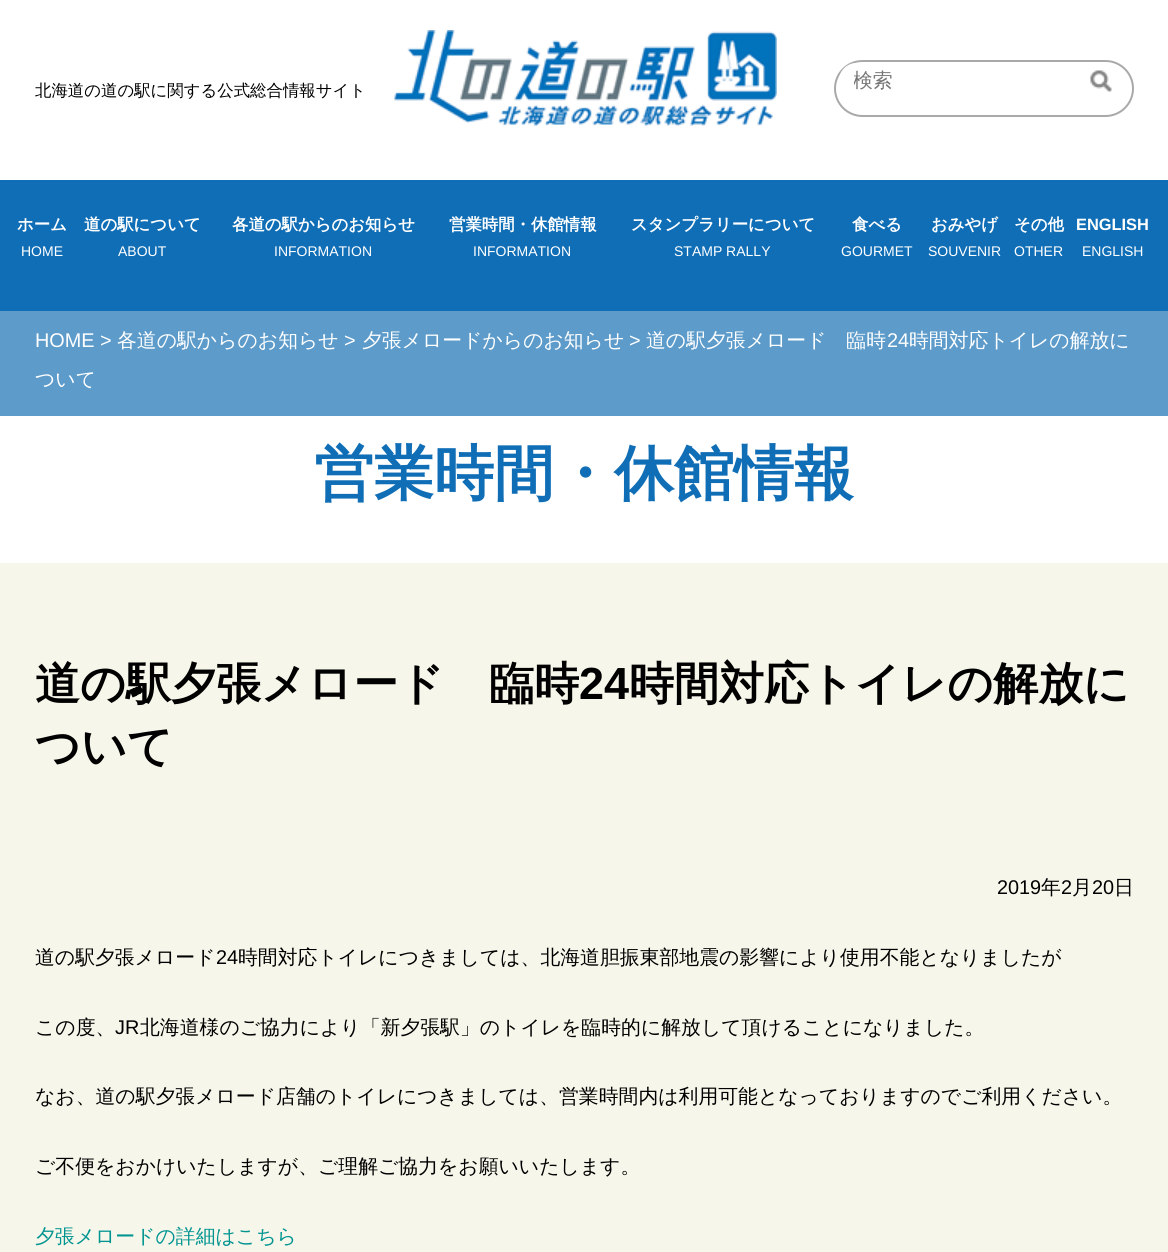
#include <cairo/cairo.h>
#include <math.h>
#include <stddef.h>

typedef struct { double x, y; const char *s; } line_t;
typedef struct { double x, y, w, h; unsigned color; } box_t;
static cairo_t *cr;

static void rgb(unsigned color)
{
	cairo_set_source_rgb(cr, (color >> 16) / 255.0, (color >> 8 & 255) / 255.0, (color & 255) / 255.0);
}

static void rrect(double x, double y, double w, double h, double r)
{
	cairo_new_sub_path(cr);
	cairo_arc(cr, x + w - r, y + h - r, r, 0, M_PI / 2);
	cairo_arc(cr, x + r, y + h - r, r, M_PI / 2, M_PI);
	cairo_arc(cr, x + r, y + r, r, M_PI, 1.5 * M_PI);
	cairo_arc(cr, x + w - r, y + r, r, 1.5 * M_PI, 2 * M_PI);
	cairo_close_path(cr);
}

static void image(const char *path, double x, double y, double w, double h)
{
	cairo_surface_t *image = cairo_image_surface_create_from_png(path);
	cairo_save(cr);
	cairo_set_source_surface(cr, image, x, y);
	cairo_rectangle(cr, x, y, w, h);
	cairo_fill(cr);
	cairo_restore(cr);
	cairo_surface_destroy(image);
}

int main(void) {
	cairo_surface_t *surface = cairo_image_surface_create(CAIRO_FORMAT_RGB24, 1168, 1252);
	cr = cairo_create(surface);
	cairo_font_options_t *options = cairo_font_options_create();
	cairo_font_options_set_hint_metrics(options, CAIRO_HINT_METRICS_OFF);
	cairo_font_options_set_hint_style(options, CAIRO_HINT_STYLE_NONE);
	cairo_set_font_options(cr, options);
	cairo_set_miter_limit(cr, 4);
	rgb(0xf6f6ea);
	cairo_paint(cr);
	rgb(0xffffff);
	cairo_rectangle(cr, 0, 0, 1168, 180);
	cairo_fill(cr);
	image("img/1.png", 394, 30, 383, 96);
	rrect(835, 61, 298, 55, 27.5);
	rgb(0xa9a9a9);
	cairo_stroke(cr);
	rgb(0xffffff);
	rrect(839, 63, 247, 35, 17.5);
	cairo_fill(cr);
	image("img/2.png", 1090, 70, 22, 22);
	{
		static const box_t items[] = {
			{0, 180, 1168, 131, 0x106eb6},
			{0, 311, 1168, 105, 0x5d9bca},
			{0, 416, 1168, 147, 0xffffff},
		};
		for (size_t i = 0; i < sizeof items / sizeof *items; i++) {
			rgb(items[i].color);
			cairo_rectangle(cr, items[i].x, items[i].y, items[i].w, items[i].h);
			cairo_fill(cr);
		}
	}
	cairo_select_font_face(cr, "WenQuanYi Zen Hei Medium", CAIRO_FONT_SLANT_NORMAL, CAIRO_FONT_WEIGHT_NORMAL);
	cairo_set_font_size(cr, 16.4);
	rgb(0x000000);
	cairo_move_to(cr, 35, 96);
	cairo_show_text(cr, "北海道の道の駅に関する公式総合情報サイト");
	cairo_save(cr);
	cairo_rectangle(cr, 854, 68, 217, 27);
	cairo_clip(cr);
	cairo_set_font_size(cr, 19.85);
	rgb(0x757575);
	cairo_move_to(cr, 853, 87);
	cairo_show_text(cr, "検索");
	cairo_restore(cr);
	cairo_select_font_face(cr, "WenQuanYi Zen Hei", CAIRO_FONT_SLANT_NORMAL, CAIRO_FONT_WEIGHT_BOLD);
	rgb(0xffffff);
	cairo_move_to(cr, 17, 230);
	cairo_show_text(cr, "ホーム");
	cairo_select_font_face(cr, "Liberation Sans", CAIRO_FONT_SLANT_NORMAL, CAIRO_FONT_WEIGHT_NORMAL);
	cairo_set_font_size(cr, 14);
	cairo_move_to(cr, 21, 256);
	cairo_show_text(cr, "HOME");
	cairo_select_font_face(cr, "WenQuanYi Zen Hei", CAIRO_FONT_SLANT_NORMAL, CAIRO_FONT_WEIGHT_BOLD);
	cairo_set_font_size(cr, 16.4);
	cairo_move_to(cr, 84, 230);
	cairo_show_text(cr, "道の駅について");
	cairo_select_font_face(cr, "Liberation Sans", CAIRO_FONT_SLANT_NORMAL, CAIRO_FONT_WEIGHT_NORMAL);
	cairo_set_font_size(cr, 14);
	cairo_move_to(cr, 118, 256);
	cairo_show_text(cr, "ABOUT");
	cairo_select_font_face(cr, "WenQuanYi Zen Hei", CAIRO_FONT_SLANT_NORMAL, CAIRO_FONT_WEIGHT_BOLD);
	cairo_set_font_size(cr, 16.4);
	cairo_move_to(cr, 232, 230);
	cairo_show_text(cr, "各道の駅からのお知らせ");
	cairo_select_font_face(cr, "Liberation Sans", CAIRO_FONT_SLANT_NORMAL, CAIRO_FONT_WEIGHT_NORMAL);
	cairo_set_font_size(cr, 14);
	cairo_move_to(cr, 274, 256);
	cairo_show_text(cr, "INFORMATION");
	cairo_select_font_face(cr, "WenQuanYi Zen Hei", CAIRO_FONT_SLANT_NORMAL, CAIRO_FONT_WEIGHT_BOLD);
	cairo_set_font_size(cr, 16.4);
	cairo_move_to(cr, 449, 230);
	cairo_show_text(cr, "営業時間・休館情報");
	cairo_select_font_face(cr, "Liberation Sans", CAIRO_FONT_SLANT_NORMAL, CAIRO_FONT_WEIGHT_NORMAL);
	cairo_set_font_size(cr, 14);
	cairo_move_to(cr, 473, 256);
	cairo_show_text(cr, "INFORMATION");
	cairo_select_font_face(cr, "WenQuanYi Zen Hei", CAIRO_FONT_SLANT_NORMAL, CAIRO_FONT_WEIGHT_BOLD);
	cairo_set_font_size(cr, 16.4);
	cairo_move_to(cr, 631, 230);
	cairo_show_text(cr, "スタンプラリーについて");
	cairo_select_font_face(cr, "Liberation Sans", CAIRO_FONT_SLANT_NORMAL, CAIRO_FONT_WEIGHT_NORMAL);
	cairo_set_font_size(cr, 14);
	cairo_move_to(cr, 674, 256);
	cairo_show_text(cr, "STAMP RALLY");
	cairo_select_font_face(cr, "WenQuanYi Zen Hei", CAIRO_FONT_SLANT_NORMAL, CAIRO_FONT_WEIGHT_BOLD);
	cairo_set_font_size(cr, 16.4);
	cairo_move_to(cr, 852, 230);
	cairo_show_text(cr, "食べる");
	cairo_select_font_face(cr, "Liberation Sans", CAIRO_FONT_SLANT_NORMAL, CAIRO_FONT_WEIGHT_NORMAL);
	cairo_set_font_size(cr, 14);
	cairo_move_to(cr, 841, 256);
	cairo_show_text(cr, "GOURMET");
	cairo_select_font_face(cr, "WenQuanYi Zen Hei", CAIRO_FONT_SLANT_NORMAL, CAIRO_FONT_WEIGHT_BOLD);
	cairo_set_font_size(cr, 16.4);
	cairo_move_to(cr, 931, 230);
	cairo_show_text(cr, "おみやげ");
	cairo_select_font_face(cr, "Liberation Sans", CAIRO_FONT_SLANT_NORMAL, CAIRO_FONT_WEIGHT_NORMAL);
	cairo_set_font_size(cr, 14);
	cairo_move_to(cr, 928, 256);
	cairo_show_text(cr, "SOUVENIR");
	cairo_select_font_face(cr, "WenQuanYi Zen Hei", CAIRO_FONT_SLANT_NORMAL, CAIRO_FONT_WEIGHT_BOLD);
	cairo_set_font_size(cr, 16.4);
	cairo_move_to(cr, 1014, 230);
	cairo_show_text(cr, "その他");
	cairo_select_font_face(cr, "Liberation Sans", CAIRO_FONT_SLANT_NORMAL, CAIRO_FONT_WEIGHT_NORMAL);
	cairo_set_font_size(cr, 14);
	cairo_move_to(cr, 1014, 256);
	cairo_show_text(cr, "OTHER");
	cairo_select_font_face(cr, "Liberation Sans", CAIRO_FONT_SLANT_NORMAL, CAIRO_FONT_WEIGHT_BOLD);
	cairo_set_font_size(cr, 16.4);
	cairo_move_to(cr, 1076, 230);
	cairo_show_text(cr, "ENGLISH");
	cairo_select_font_face(cr, "Liberation Sans", CAIRO_FONT_SLANT_NORMAL, CAIRO_FONT_WEIGHT_NORMAL);
	cairo_set_font_size(cr, 14);
	cairo_move_to(cr, 1082, 256);
	cairo_show_text(cr, "ENGLISH");
	cairo_set_font_size(cr, 19.85);
	cairo_move_to(cr, 35, 347);
	cairo_show_text(cr, "HOME >");
	cairo_select_font_face(cr, "WenQuanYi Zen Hei Medium", CAIRO_FONT_SLANT_NORMAL, CAIRO_FONT_WEIGHT_NORMAL);
	cairo_move_to(cr, 117, 347);
	cairo_show_text(cr, "各道の駅からのお知らせ");
	cairo_select_font_face(cr, "Liberation Sans", CAIRO_FONT_SLANT_NORMAL, CAIRO_FONT_WEIGHT_NORMAL);
	cairo_move_to(cr, 344, 347);
	cairo_show_text(cr, ">");
	cairo_select_font_face(cr, "WenQuanYi Zen Hei Medium", CAIRO_FONT_SLANT_NORMAL, CAIRO_FONT_WEIGHT_NORMAL);
	cairo_move_to(cr, 362, 347);
	cairo_show_text(cr, "夕張メロードからのお知らせ");
	cairo_select_font_face(cr, "Liberation Sans", CAIRO_FONT_SLANT_NORMAL, CAIRO_FONT_WEIGHT_NORMAL);
	cairo_move_to(cr, 629, 347);
	cairo_show_text(cr, ">");
	cairo_select_font_face(cr, "WenQuanYi Zen Hei Medium", CAIRO_FONT_SLANT_NORMAL, CAIRO_FONT_WEIGHT_NORMAL);
	cairo_move_to(cr, 646, 347);
	cairo_show_text(cr, "道の駅夕張メロード　臨時");
	cairo_select_font_face(cr, "Liberation Sans", CAIRO_FONT_SLANT_NORMAL, CAIRO_FONT_WEIGHT_NORMAL);
	cairo_move_to(cr, 887, 347);
	cairo_show_text(cr, "24");
	cairo_select_font_face(cr, "WenQuanYi Zen Hei Medium", CAIRO_FONT_SLANT_NORMAL, CAIRO_FONT_WEIGHT_NORMAL);
	cairo_move_to(cr, 909, 347);
	cairo_show_text(cr, "時間対応トイレの解放に");
	cairo_move_to(cr, 35, 386);
	cairo_show_text(cr, "ついて");
	cairo_select_font_face(cr, "WenQuanYi Zen Hei", CAIRO_FONT_SLANT_NORMAL, CAIRO_FONT_WEIGHT_BOLD);
	cairo_set_font_size(cr, 60);
	rgb(0x106eb6);
	cairo_move_to(cr, 314, 494);
	cairo_show_text(cr, "営業時間・休館情報");
	cairo_set_font_size(cr, 45);
	rgb(0x000000);
	cairo_move_to(cr, 35, 699);
	cairo_show_text(cr, "道の駅夕張メロード　臨時");
	cairo_select_font_face(cr, "Liberation Sans", CAIRO_FONT_SLANT_NORMAL, CAIRO_FONT_WEIGHT_BOLD);
	cairo_move_to(cr, 579, 699);
	cairo_show_text(cr, "24");
	cairo_select_font_face(cr, "WenQuanYi Zen Hei", CAIRO_FONT_SLANT_NORMAL, CAIRO_FONT_WEIGHT_BOLD);
	cairo_move_to(cr, 629, 699);
	cairo_show_text(cr, "時間対応トイレの解放に");
	cairo_move_to(cr, 35, 762);
	cairo_show_text(cr, "ついて");
	cairo_select_font_face(cr, "Liberation Sans", CAIRO_FONT_SLANT_NORMAL, CAIRO_FONT_WEIGHT_NORMAL);
	cairo_set_font_size(cr, 19.85);
	cairo_move_to(cr, 997, 894);
	cairo_show_text(cr, "2019");
	cairo_select_font_face(cr, "WenQuanYi Zen Hei Medium", CAIRO_FONT_SLANT_NORMAL, CAIRO_FONT_WEIGHT_NORMAL);
	cairo_move_to(cr, 1041, 894);
	cairo_show_text(cr, "年");
	cairo_select_font_face(cr, "Liberation Sans", CAIRO_FONT_SLANT_NORMAL, CAIRO_FONT_WEIGHT_NORMAL);
	cairo_move_to(cr, 1061, 894);
	cairo_show_text(cr, "2");
	cairo_select_font_face(cr, "WenQuanYi Zen Hei Medium", CAIRO_FONT_SLANT_NORMAL, CAIRO_FONT_WEIGHT_NORMAL);
	cairo_move_to(cr, 1072, 894);
	cairo_show_text(cr, "月");
	cairo_select_font_face(cr, "Liberation Sans", CAIRO_FONT_SLANT_NORMAL, CAIRO_FONT_WEIGHT_NORMAL);
	cairo_move_to(cr, 1092, 894);
	cairo_show_text(cr, "20");
	cairo_select_font_face(cr, "WenQuanYi Zen Hei Medium", CAIRO_FONT_SLANT_NORMAL, CAIRO_FONT_WEIGHT_NORMAL);
	cairo_move_to(cr, 1114, 894);
	cairo_show_text(cr, "日");
	cairo_move_to(cr, 35, 964);
	cairo_show_text(cr, "道の駅夕張メロード");
	cairo_select_font_face(cr, "Liberation Sans", CAIRO_FONT_SLANT_NORMAL, CAIRO_FONT_WEIGHT_NORMAL);
	cairo_move_to(cr, 216, 964);
	cairo_show_text(cr, "24");
	cairo_select_font_face(cr, "WenQuanYi Zen Hei Medium", CAIRO_FONT_SLANT_NORMAL, CAIRO_FONT_WEIGHT_NORMAL);
	cairo_move_to(cr, 238, 964);
	cairo_show_text(cr, "時間対応トイレにつきましては、北海道胆振東部地震の影響により使用不能となりましたが");
	cairo_move_to(cr, 35, 1034);
	cairo_show_text(cr, "この度、");
	cairo_select_font_face(cr, "Liberation Sans", CAIRO_FONT_SLANT_NORMAL, CAIRO_FONT_WEIGHT_NORMAL);
	cairo_move_to(cr, 115, 1034);
	cairo_show_text(cr, "JR");
	cairo_select_font_face(cr, "WenQuanYi Zen Hei Medium", CAIRO_FONT_SLANT_NORMAL, CAIRO_FONT_WEIGHT_NORMAL);
	{
		static const line_t items[] = {
			{140, 1034, "北海道様のご協力により「新夕張駅」のトイレを臨時的に解放して頂けることになりました。"},
			{35, 1103, "なお、道の駅夕張メロード店舗のトイレにつきましては、営業時間内は利用可能となっておりますのでご利用ください。"},
			{35, 1173, "ご不便をおかけいたしますが、ご理解ご協力をお願いいたします。"},
		};
		for (size_t i = 0; i < sizeof items / sizeof *items; i++) {
			cairo_move_to(cr, items[i].x, items[i].y);
			cairo_show_text(cr, items[i].s);
		}
	}
	rgb(0x009491);
	cairo_move_to(cr, 35, 1243);
	cairo_show_text(cr, "夕張メロードの詳細はこちら");
	cairo_surface_write_to_png(surface, "page.png");
	cairo_font_options_destroy(options);
	cairo_destroy(cr);
	cairo_surface_destroy(surface);
	return 0;
}
